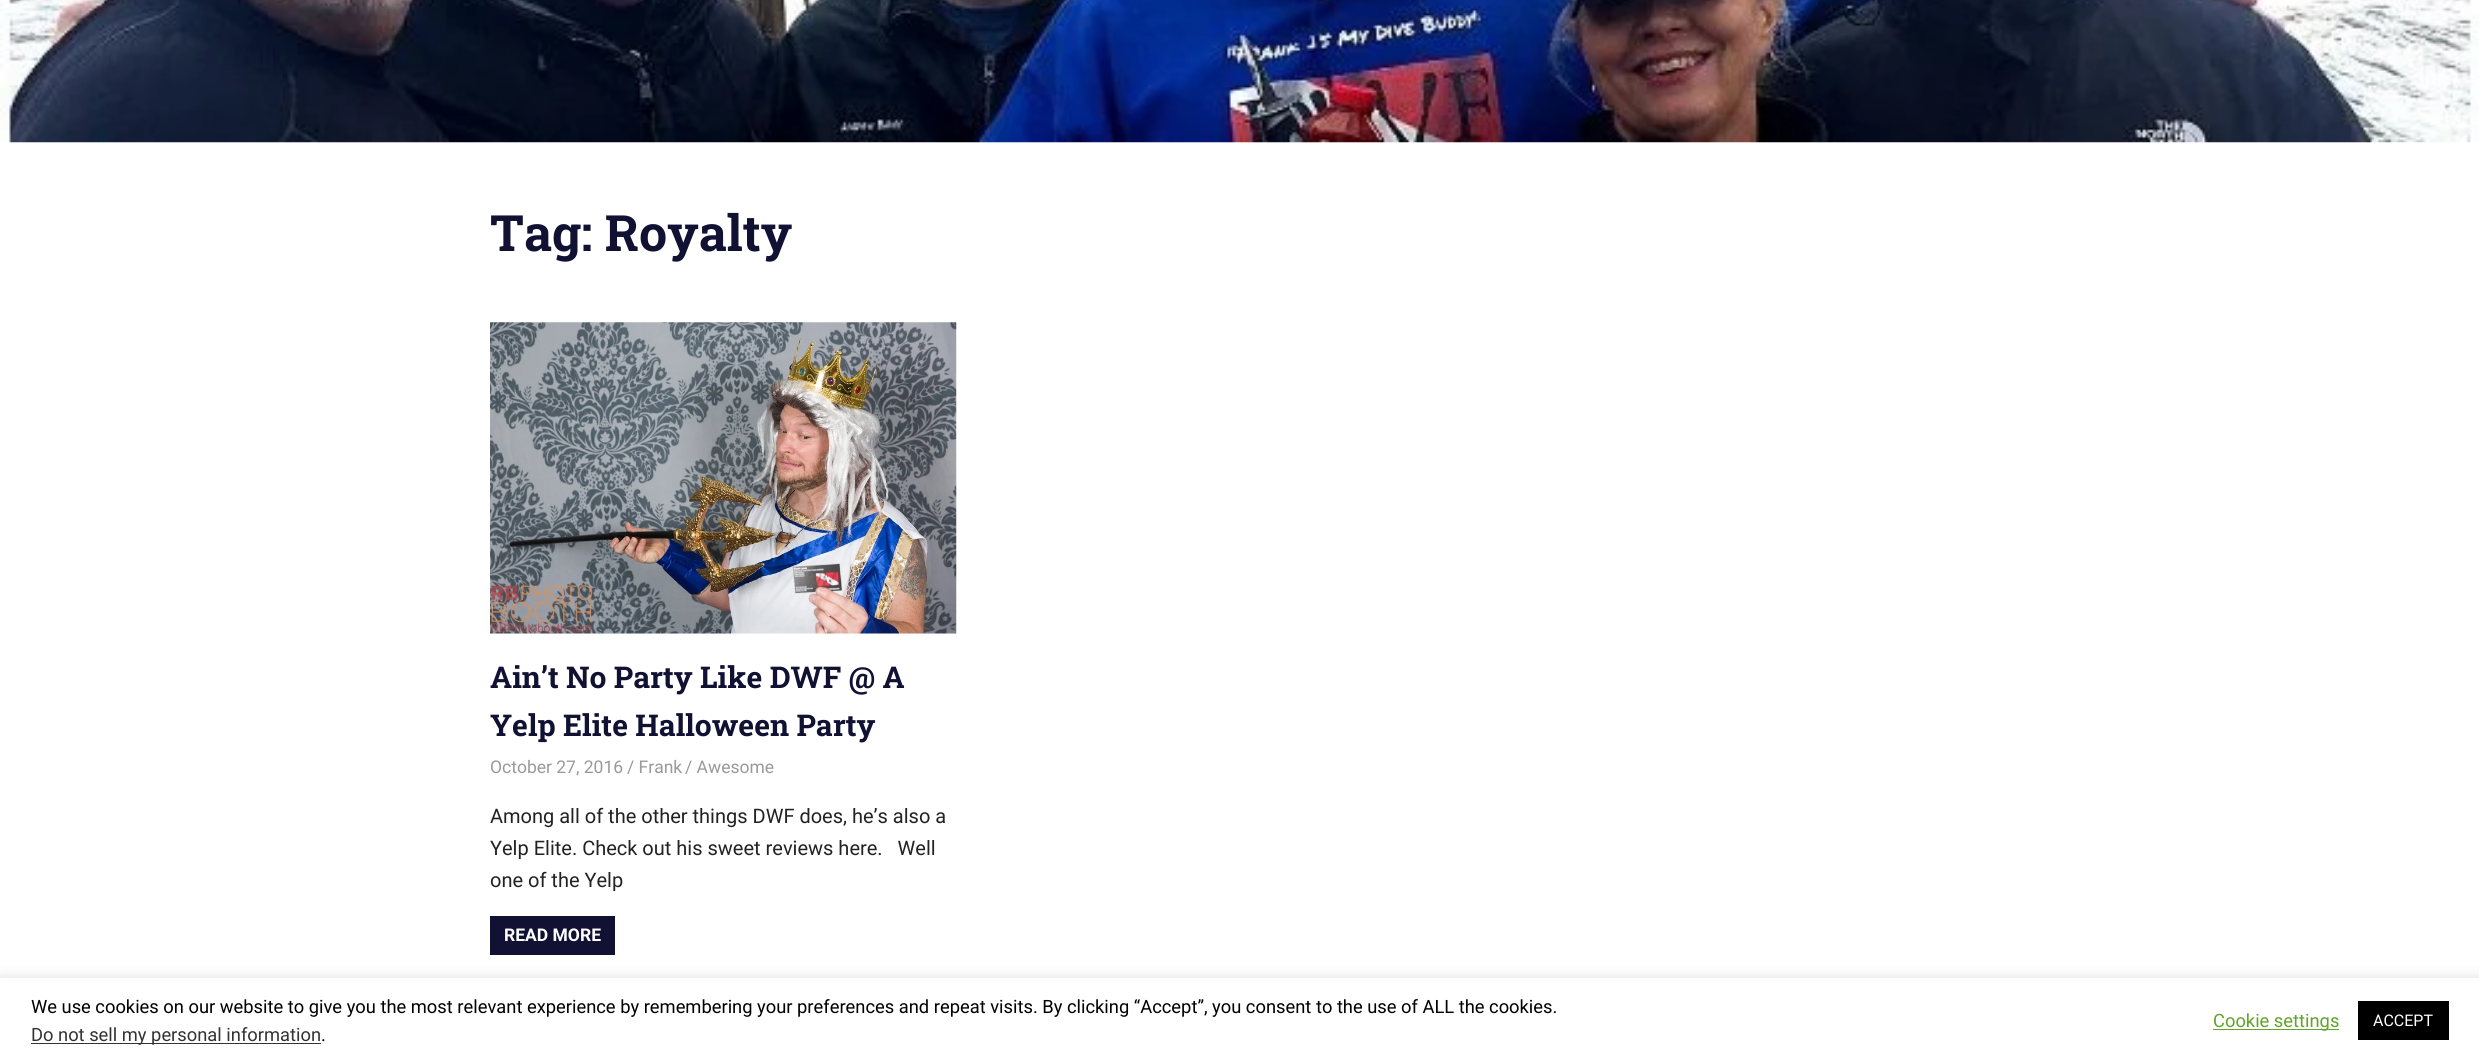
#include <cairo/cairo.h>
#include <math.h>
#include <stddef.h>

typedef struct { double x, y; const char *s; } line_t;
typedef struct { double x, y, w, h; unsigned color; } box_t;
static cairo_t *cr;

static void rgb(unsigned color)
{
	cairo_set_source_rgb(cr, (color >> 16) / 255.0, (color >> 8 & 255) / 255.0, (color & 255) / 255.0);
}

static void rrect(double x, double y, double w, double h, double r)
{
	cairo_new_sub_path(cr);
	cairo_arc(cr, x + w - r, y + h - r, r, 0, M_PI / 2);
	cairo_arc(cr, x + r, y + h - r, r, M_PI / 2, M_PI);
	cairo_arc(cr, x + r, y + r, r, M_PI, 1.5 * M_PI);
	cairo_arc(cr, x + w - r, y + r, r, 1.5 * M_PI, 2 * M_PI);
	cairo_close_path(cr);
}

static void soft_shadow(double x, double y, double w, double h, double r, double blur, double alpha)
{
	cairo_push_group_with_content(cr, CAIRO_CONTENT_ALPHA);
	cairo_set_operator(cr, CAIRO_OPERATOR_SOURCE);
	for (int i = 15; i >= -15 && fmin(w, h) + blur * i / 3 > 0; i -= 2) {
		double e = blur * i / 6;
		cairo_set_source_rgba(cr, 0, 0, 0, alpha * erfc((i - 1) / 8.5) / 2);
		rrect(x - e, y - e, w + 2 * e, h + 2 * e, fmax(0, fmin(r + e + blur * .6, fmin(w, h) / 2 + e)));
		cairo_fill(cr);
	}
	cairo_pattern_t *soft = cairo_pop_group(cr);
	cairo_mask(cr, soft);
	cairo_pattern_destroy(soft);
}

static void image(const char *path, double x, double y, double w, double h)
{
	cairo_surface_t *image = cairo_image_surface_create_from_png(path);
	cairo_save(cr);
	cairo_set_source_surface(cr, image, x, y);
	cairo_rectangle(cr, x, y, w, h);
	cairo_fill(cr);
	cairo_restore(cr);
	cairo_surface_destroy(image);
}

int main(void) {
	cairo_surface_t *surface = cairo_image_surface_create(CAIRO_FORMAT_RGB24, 2479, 1063);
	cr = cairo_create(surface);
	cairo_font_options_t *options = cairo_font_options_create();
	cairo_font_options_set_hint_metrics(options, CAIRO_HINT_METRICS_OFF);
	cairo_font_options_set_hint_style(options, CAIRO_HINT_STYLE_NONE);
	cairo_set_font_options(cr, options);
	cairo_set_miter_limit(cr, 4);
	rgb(0xffffff);
	cairo_paint(cr);
	image("img/1.png", 0, 0, 2479, 143);
	image("img/2.png", 490, 322, 467, 312);
	rgb(0x111133);
	cairo_rectangle(cr, 490, 916, 125, 39);
	cairo_fill(cr);
	rgb(0xacabab);
	soft_shadow(0, 976, 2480, 87, 0, 6, 0.3);
	{
		static const box_t items[] = {
			{0, 978, 2479, 85, 0xffffff},
			{31, 1043, 290, 1, 0x333333},
			{2213, 1029, 126, 1, 0x62a329},
			{2358, 1001, 91, 39, 0x000000},
		};
		for (size_t i = 0; i < sizeof items / sizeof *items; i++) {
			rgb(items[i].color);
			cairo_rectangle(cr, items[i].x, items[i].y, items[i].w, items[i].h);
			cairo_fill(cr);
		}
	}
	cairo_select_font_face(cr, "Roboto Slab", CAIRO_FONT_SLANT_NORMAL, CAIRO_FONT_WEIGHT_BOLD);
	cairo_set_font_size(cr, 50);
	rgb(0x111133);
	cairo_move_to(cr, 490, 251);
	cairo_show_text(cr, "Tag: Royalty");
	cairo_set_font_size(cr, 30);
	cairo_move_to(cr, 490, 688);
	cairo_show_text(cr, "Ain’t No Party Like DWF @ A");
	cairo_move_to(cr, 490, 736);
	cairo_show_text(cr, "Yelp Elite Halloween Party");
	cairo_select_font_face(cr, "Roboto", CAIRO_FONT_SLANT_NORMAL, CAIRO_FONT_WEIGHT_NORMAL);
	cairo_set_font_size(cr, 17.5);
	rgb(0x999999);
	{
		static const line_t items[] = {
			{490, 773, "October 27, 2016"},
			{627, 773, "/ Frank"},
			{685, 773, "/ Awesome"},
		};
		for (size_t i = 0; i < sizeof items / sizeof *items; i++) {
			cairo_move_to(cr, items[i].x, items[i].y);
			cairo_show_text(cr, items[i].s);
		}
	}
	cairo_set_font_size(cr, 20);
	rgb(0x222222);
	{
		static const line_t items[] = {
			{490, 823, "Among all of the other things DWF does, he’s also a"},
			{490, 855, "Yelp Elite. Check out his sweet reviews here.   Well"},
			{490, 887, "one of the Yelp"},
		};
		for (size_t i = 0; i < sizeof items / sizeof *items; i++) {
			cairo_move_to(cr, items[i].x, items[i].y);
			cairo_show_text(cr, items[i].s);
		}
	}
	cairo_select_font_face(cr, "Roboto", CAIRO_FONT_SLANT_NORMAL, CAIRO_FONT_WEIGHT_BOLD);
	cairo_set_font_size(cr, 17.5);
	rgb(0xffffff);
	cairo_move_to(cr, 504, 941);
	cairo_show_text(cr, "READ MORE");
	cairo_select_font_face(cr, "Roboto", CAIRO_FONT_SLANT_NORMAL, CAIRO_FONT_WEIGHT_NORMAL);
	cairo_set_font_size(cr, 18.33);
	rgb(0x000000);
	cairo_move_to(cr, 31, 1013);
	cairo_show_text(cr, "We use cookies on our website to give you the most relevant experience by remembering your preferences and repeat visits. By clicking “Accept”, you consent to the use of ALL the cookies.");
	rgb(0x333333);
	cairo_move_to(cr, 31, 1041);
	cairo_show_text(cr, "Do not sell my personal information");
	rgb(0x000000);
	cairo_move_to(cr, 321, 1041);
	cairo_show_text(cr, ".");
	rgb(0x62a329);
	cairo_move_to(cr, 2213, 1027);
	cairo_show_text(cr, "Cookie settings");
	cairo_set_font_size(cr, 16);
	rgb(0xffffff);
	cairo_move_to(cr, 2373, 1026);
	cairo_show_text(cr, "ACCEPT");
	cairo_surface_write_to_png(surface, "page.png");
	cairo_font_options_destroy(options);
	cairo_destroy(cr);
	cairo_surface_destroy(surface);
	return 0;
}
